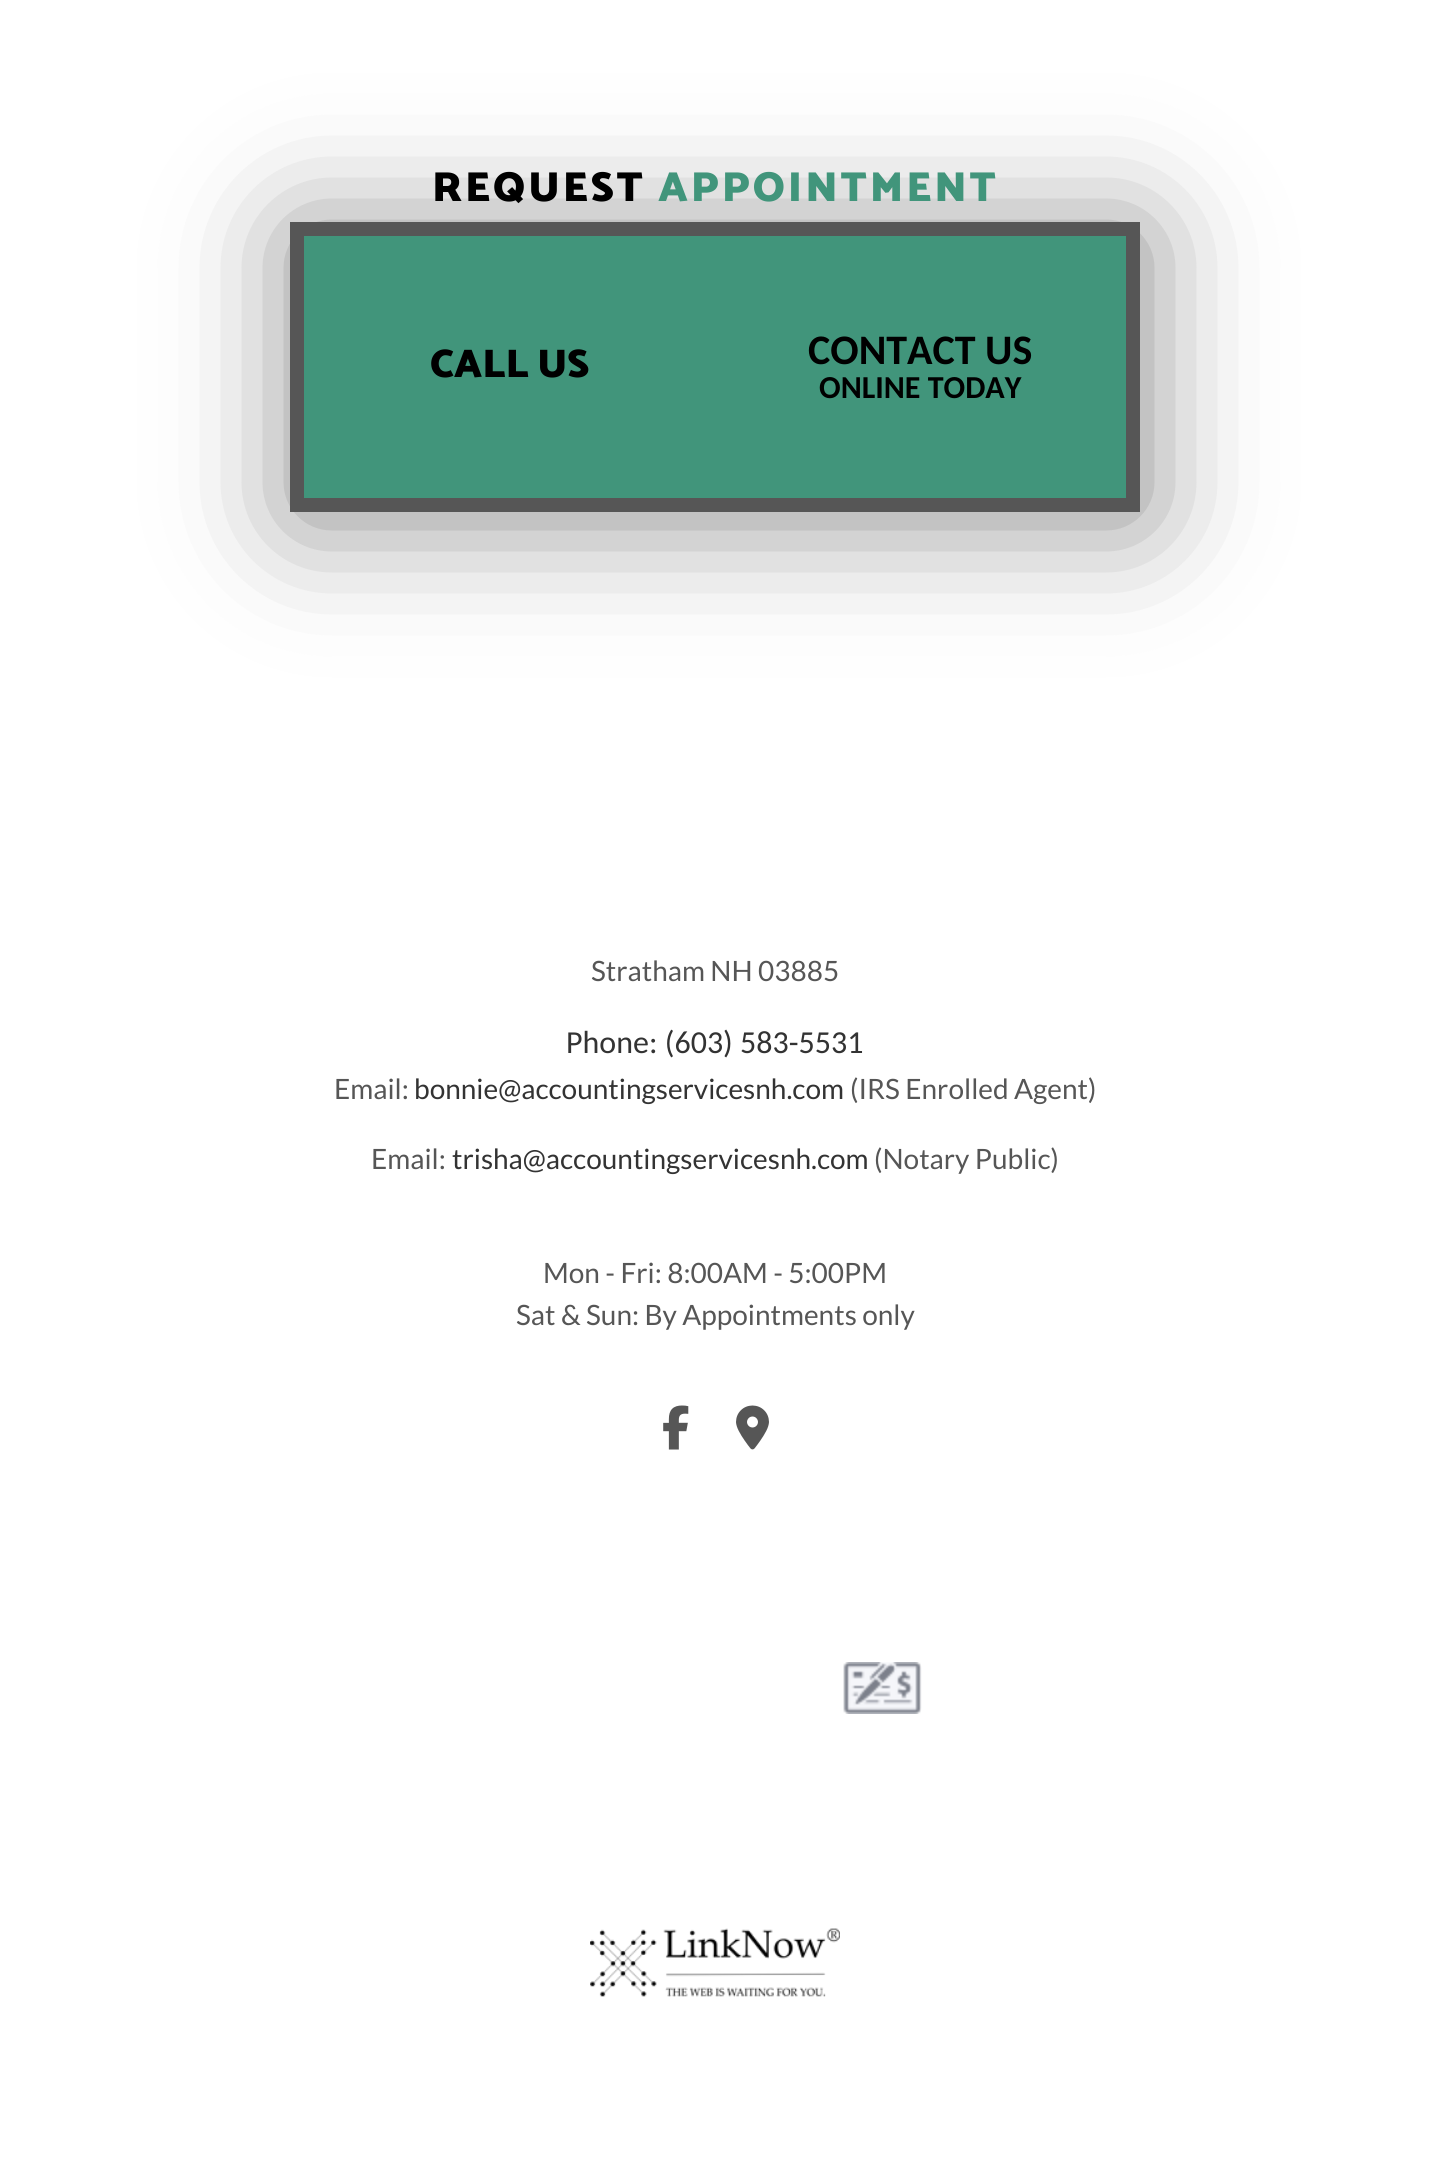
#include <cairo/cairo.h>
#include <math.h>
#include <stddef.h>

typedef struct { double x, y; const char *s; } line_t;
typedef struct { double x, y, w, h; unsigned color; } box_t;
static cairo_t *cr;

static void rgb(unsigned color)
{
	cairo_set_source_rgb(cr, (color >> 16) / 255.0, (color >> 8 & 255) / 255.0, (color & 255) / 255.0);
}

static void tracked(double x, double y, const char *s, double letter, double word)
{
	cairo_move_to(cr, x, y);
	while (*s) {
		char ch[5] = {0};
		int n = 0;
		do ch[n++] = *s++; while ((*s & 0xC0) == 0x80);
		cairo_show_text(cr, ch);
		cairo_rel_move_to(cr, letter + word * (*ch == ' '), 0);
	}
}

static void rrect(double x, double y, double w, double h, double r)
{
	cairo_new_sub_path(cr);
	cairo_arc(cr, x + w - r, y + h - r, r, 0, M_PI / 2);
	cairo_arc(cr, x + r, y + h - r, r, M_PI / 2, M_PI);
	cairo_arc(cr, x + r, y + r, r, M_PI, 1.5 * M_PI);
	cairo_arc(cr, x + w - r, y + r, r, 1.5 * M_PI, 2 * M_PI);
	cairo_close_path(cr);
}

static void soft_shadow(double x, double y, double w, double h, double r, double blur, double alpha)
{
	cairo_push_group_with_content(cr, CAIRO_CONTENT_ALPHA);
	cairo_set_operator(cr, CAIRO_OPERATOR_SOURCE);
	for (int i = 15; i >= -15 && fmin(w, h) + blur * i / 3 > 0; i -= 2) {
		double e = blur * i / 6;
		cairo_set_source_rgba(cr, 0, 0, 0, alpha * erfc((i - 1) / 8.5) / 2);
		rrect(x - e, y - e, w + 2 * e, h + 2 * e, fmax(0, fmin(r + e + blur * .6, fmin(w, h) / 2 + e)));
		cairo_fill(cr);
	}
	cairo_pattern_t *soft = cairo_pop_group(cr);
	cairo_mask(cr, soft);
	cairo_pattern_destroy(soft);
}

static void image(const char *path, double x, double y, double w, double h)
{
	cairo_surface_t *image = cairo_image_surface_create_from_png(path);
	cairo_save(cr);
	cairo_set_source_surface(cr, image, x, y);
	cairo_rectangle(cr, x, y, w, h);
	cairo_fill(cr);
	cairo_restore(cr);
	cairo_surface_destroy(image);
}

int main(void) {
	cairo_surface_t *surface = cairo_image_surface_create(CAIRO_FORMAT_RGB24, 1430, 2180);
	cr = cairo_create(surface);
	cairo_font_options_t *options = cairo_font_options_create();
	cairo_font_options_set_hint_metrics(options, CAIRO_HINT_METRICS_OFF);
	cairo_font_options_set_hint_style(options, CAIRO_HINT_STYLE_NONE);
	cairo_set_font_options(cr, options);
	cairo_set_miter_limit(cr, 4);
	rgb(0xffffff);
	cairo_paint(cr);
	rgb(0x000000);
	soft_shadow(294, 230, 850, 290, 0, 63, 0.47);
	{
		static const box_t items[] = {
			{304, 236, 822, 262, 0x41957b},
			{304, 222, 822, 14, 0x565656},
			{304, 498, 836, 14, 0x565656},
			{290, 222, 14, 290, 0x565656},
			{1126, 222, 14, 276, 0x565656},
		};
		for (size_t i = 0; i < sizeof items / sizeof *items; i++) {
			rgb(items[i].color);
			cairo_rectangle(cr, items[i].x, items[i].y, items[i].w, items[i].h);
			cairo_fill(cr);
		}
	}
	image("img/1.png", 663, 1405, 26, 45);
	image("img/2.png", 736, 1405, 33, 45);
	image("img/3.png", 843, 1662, 79, 52);
	image("img/4.png", 590, 1928, 250, 69);
	cairo_select_font_face(cr, "Catamaran Black", CAIRO_FONT_SLANT_NORMAL, CAIRO_FONT_WEIGHT_NORMAL);
	cairo_set_font_size(cr, 42);
	rgb(0x000000);
	tracked(432, 201, "REQUEST", 3, 0);
	rgb(0x41957b);
	tracked(658, 201, "APPOINTMENT", 3, 0);
	cairo_set_font_size(cr, 40);
	rgb(0x000000);
	cairo_move_to(cr, 430, 377);
	cairo_show_text(cr, "CALL US");
	cairo_select_font_face(cr, "Carlito", CAIRO_FONT_SLANT_NORMAL, CAIRO_FONT_WEIGHT_BOLD);
	cairo_set_font_size(cr, 42);
	cairo_move_to(cr, 808, 364);
	cairo_show_text(cr, "CONTACT US");
	cairo_set_font_size(cr, 32);
	cairo_move_to(cr, 819, 398);
	cairo_show_text(cr, "ONLINE TODAY");
	cairo_select_font_face(cr, "Lato", CAIRO_FONT_SLANT_NORMAL, CAIRO_FONT_WEIGHT_NORMAL);
	cairo_set_font_size(cr, 28);
	rgb(0x565656);
	cairo_move_to(cr, 591, 981);
	cairo_show_text(cr, "Stratham NH 03885");
	cairo_select_font_face(cr, "Carlito", CAIRO_FONT_SLANT_NORMAL, CAIRO_FONT_WEIGHT_NORMAL);
	cairo_set_font_size(cr, 32);
	rgb(0x333333);
	cairo_move_to(cr, 566, 1053);
	cairo_show_text(cr, "Phone: (603) 583-5531");
	cairo_select_font_face(cr, "Lato", CAIRO_FONT_SLANT_NORMAL, CAIRO_FONT_WEIGHT_NORMAL);
	cairo_set_font_size(cr, 28);
	rgb(0x565656);
	cairo_move_to(cr, 334, 1099);
	cairo_show_text(cr, "Email:");
	rgb(0x333333);
	cairo_move_to(cr, 414, 1099);
	cairo_show_text(cr, "bonnie@accountingservicesnh.com");
	rgb(0x565656);
	cairo_move_to(cr, 850, 1099);
	cairo_show_text(cr, "(IRS Enrolled Agent)");
	cairo_move_to(cr, 371, 1169);
	cairo_show_text(cr, "Email:");
	rgb(0x333333);
	cairo_move_to(cr, 452, 1169);
	cairo_show_text(cr, "trisha@accountingservicesnh.com");
	rgb(0x565656);
	{
		static const line_t items[] = {
			{874, 1169, "(Notary Public)"},
			{543, 1283, "Mon - Fri: 8:00AM - 5:00PM"},
			{516, 1325, "Sat & Sun: By Appointments only"},
		};
		for (size_t i = 0; i < sizeof items / sizeof *items; i++) {
			cairo_move_to(cr, items[i].x, items[i].y);
			cairo_show_text(cr, items[i].s);
		}
	}
	cairo_surface_write_to_png(surface, "page.png");
	cairo_font_options_destroy(options);
	cairo_destroy(cr);
	cairo_surface_destroy(surface);
	return 0;
}
